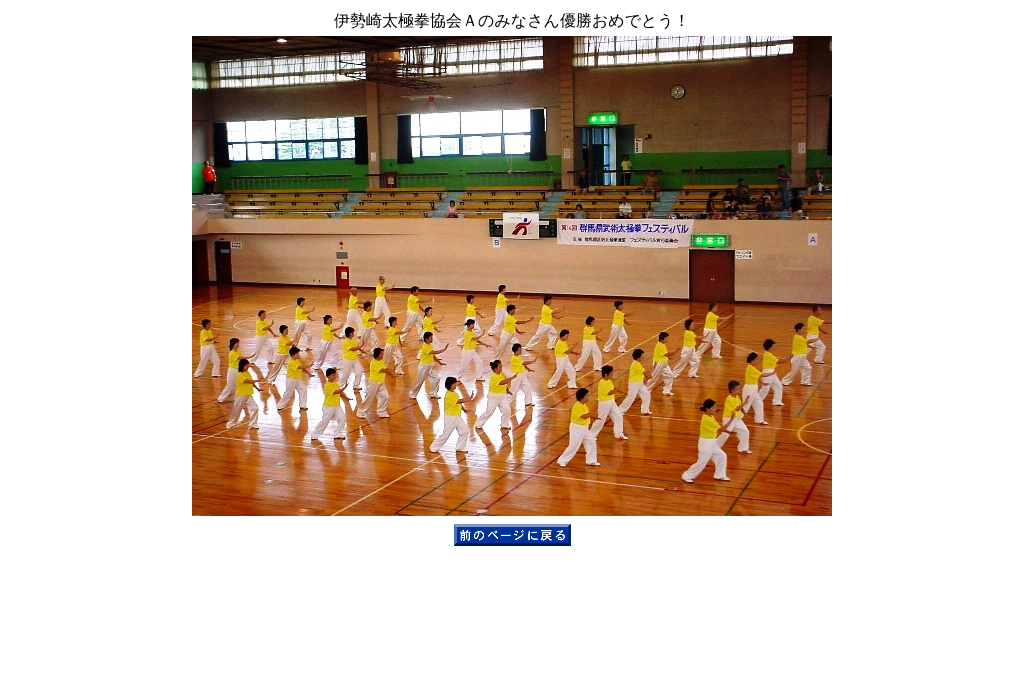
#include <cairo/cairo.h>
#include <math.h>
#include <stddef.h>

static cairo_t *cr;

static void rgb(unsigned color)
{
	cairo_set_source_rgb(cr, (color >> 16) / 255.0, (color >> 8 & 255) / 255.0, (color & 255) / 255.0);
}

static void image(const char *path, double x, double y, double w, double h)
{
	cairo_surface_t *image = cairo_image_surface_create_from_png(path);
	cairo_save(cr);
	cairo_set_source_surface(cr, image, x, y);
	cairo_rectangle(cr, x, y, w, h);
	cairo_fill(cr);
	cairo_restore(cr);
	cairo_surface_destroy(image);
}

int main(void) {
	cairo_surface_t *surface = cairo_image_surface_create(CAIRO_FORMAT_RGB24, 1024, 683);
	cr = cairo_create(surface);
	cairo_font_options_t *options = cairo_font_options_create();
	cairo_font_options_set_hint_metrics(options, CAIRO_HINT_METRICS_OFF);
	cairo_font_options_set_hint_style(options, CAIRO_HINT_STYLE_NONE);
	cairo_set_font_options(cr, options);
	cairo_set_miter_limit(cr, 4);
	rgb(0xffffff);
	cairo_paint(cr);
	image("img/1.png", 192, 36, 640, 480);
	image("img/2.png", 454, 524, 117, 22);
	cairo_select_font_face(cr, "WenQuanYi Zen Hei Medium", CAIRO_FONT_SLANT_NORMAL, CAIRO_FONT_WEIGHT_NORMAL);
	cairo_set_font_size(cr, 16);
	rgb(0x000000);
	cairo_move_to(cr, 334, 26);
	cairo_show_text(cr, "伊勢崎太極拳協会Ａのみなさん優勝おめでとう！");
	cairo_surface_write_to_png(surface, "page.png");
	cairo_font_options_destroy(options);
	cairo_destroy(cr);
	cairo_surface_destroy(surface);
	return 0;
}
